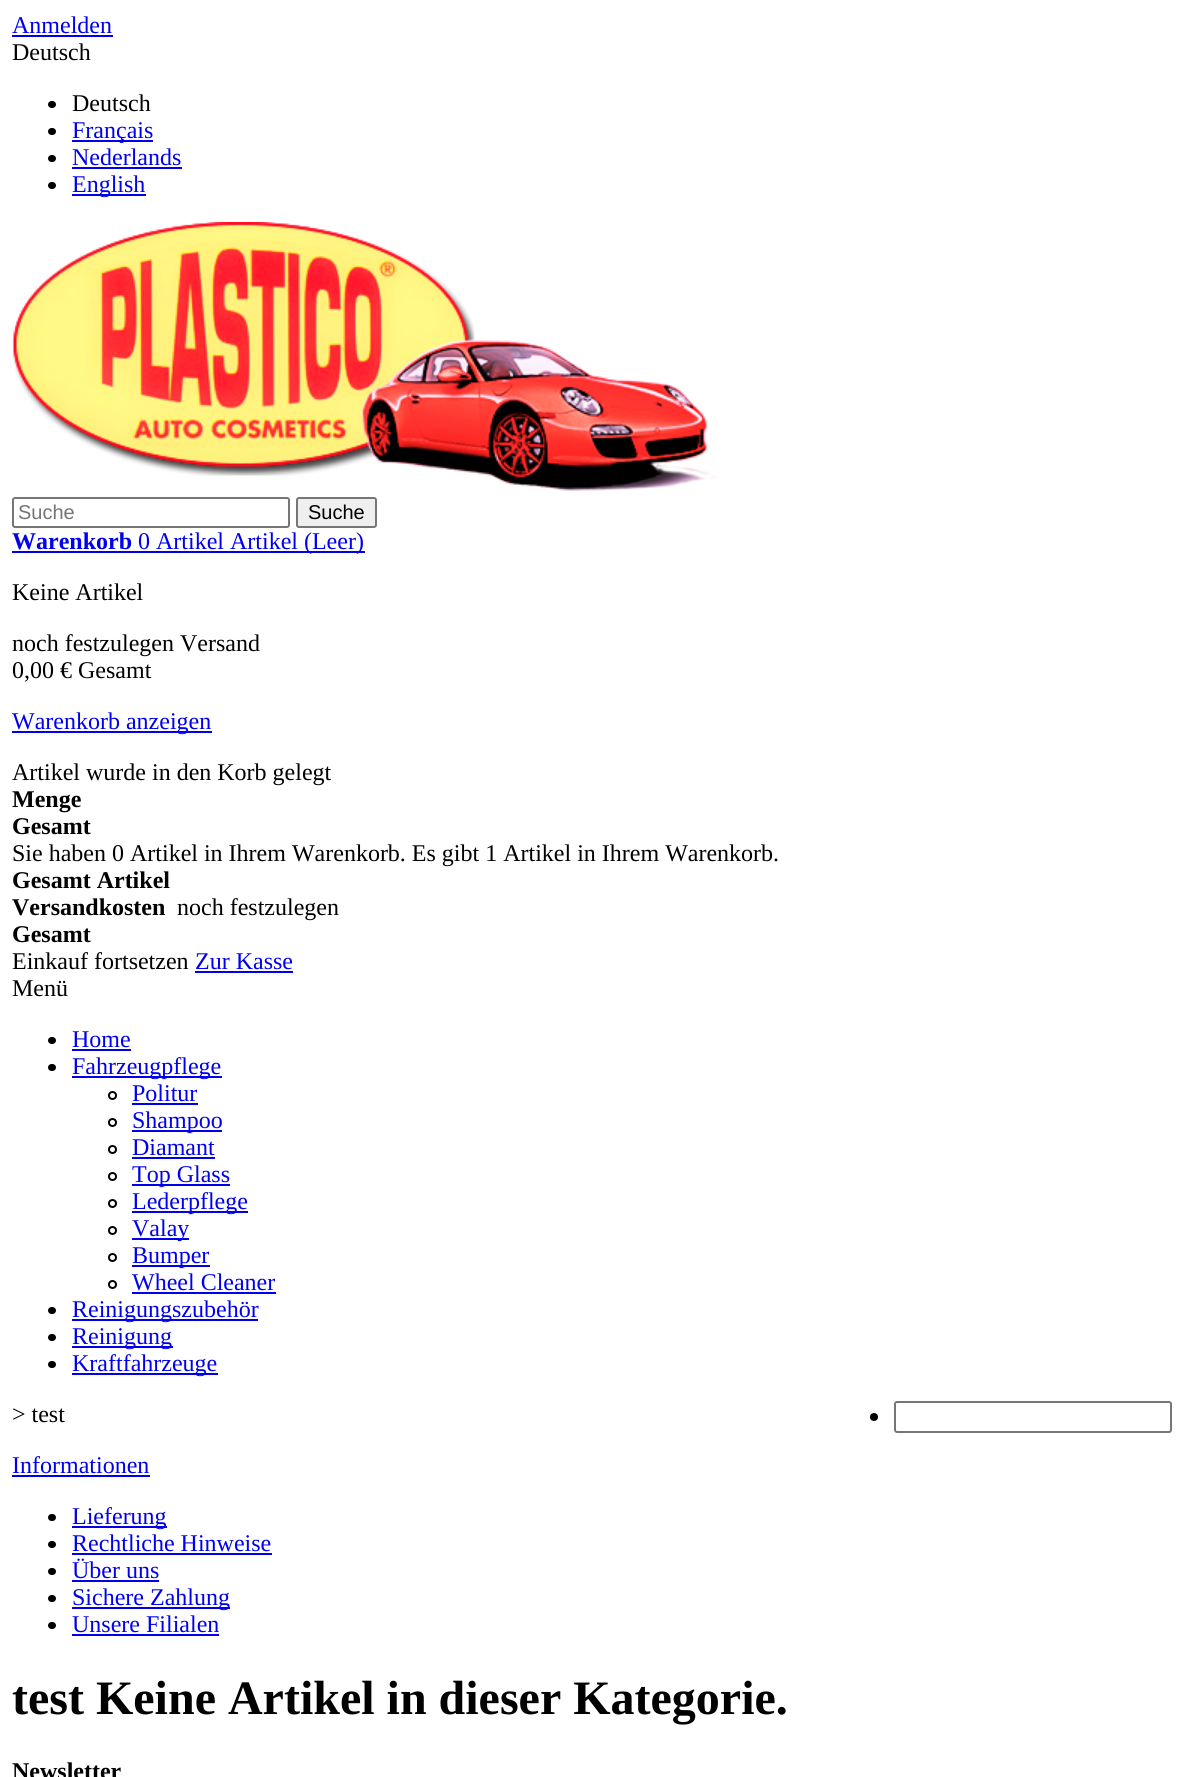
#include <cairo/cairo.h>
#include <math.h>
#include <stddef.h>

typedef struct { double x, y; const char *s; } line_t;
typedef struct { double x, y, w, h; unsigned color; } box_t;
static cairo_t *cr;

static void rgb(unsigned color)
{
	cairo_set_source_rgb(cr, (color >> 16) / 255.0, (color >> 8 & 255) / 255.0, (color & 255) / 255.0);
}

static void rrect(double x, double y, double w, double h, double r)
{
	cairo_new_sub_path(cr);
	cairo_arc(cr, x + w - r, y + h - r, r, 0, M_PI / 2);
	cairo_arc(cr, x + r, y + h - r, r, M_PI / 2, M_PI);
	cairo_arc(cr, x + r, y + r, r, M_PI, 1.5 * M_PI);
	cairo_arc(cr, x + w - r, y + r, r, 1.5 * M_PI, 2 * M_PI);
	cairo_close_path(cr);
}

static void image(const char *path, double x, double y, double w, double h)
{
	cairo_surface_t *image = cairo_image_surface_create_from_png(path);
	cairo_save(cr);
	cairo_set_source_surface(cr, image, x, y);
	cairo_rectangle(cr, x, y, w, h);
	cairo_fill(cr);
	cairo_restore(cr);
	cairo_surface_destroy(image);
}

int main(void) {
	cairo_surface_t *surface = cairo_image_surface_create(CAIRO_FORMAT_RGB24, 1183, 1777);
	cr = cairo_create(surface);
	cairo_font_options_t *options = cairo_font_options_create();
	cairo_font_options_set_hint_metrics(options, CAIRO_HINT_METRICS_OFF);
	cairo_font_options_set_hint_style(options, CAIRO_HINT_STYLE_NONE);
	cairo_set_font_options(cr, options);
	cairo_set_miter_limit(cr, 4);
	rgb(0xffffff);
	cairo_paint(cr);
	rgb(0x0000ee);
	cairo_rectangle(cr, 12, 35, 101, 2);
	cairo_fill(cr);
	rgb(0x000000);
	rrect(48, 101, 8, 7, 3.5);
	cairo_fill(cr);
	rrect(48, 128, 8, 7, 3.5);
	cairo_fill(cr);
	rgb(0x0000ee);
	cairo_rectangle(cr, 72, 140, 81, 2);
	cairo_fill(cr);
	rgb(0x000000);
	rrect(48, 155, 8, 7, 3.5);
	cairo_fill(cr);
	rgb(0x0000ee);
	cairo_rectangle(cr, 72, 167, 110, 2);
	cairo_fill(cr);
	rgb(0x000000);
	rrect(48, 182, 8, 7, 3.5);
	cairo_fill(cr);
	rgb(0x0000ee);
	cairo_rectangle(cr, 72, 194, 74, 2);
	cairo_fill(cr);
	image("img/1.png", 12, 222, 704, 269);
	rrect(13, 498, 276, 29, 2);
	rgb(0x767676);
	cairo_stroke(cr);
	rgb(0xefefef);
	rrect(297, 498, 79, 29, 2);
	cairo_fill_preserve(cr);
	rgb(0x767676);
	cairo_stroke(cr);
	{
		static const box_t items[] = {
			{12, 551, 353, 2, 0x0000ee},
			{12, 731, 200, 2, 0x0000ee},
			{195, 971, 98, 2, 0x0000ee},
		};
		for (size_t i = 0; i < sizeof items / sizeof *items; i++) {
			rgb(items[i].color);
			cairo_rectangle(cr, items[i].x, items[i].y, items[i].w, items[i].h);
			cairo_fill(cr);
		}
	}
	rgb(0x000000);
	rrect(48, 1037, 8, 7, 3.5);
	cairo_fill(cr);
	rgb(0x0000ee);
	cairo_rectangle(cr, 72, 1049, 59, 2);
	cairo_fill(cr);
	rgb(0x000000);
	rrect(48, 1064, 8, 7, 3.5);
	cairo_fill(cr);
	rgb(0x0000ee);
	cairo_rectangle(cr, 72, 1076, 150, 2);
	cairo_fill(cr);
	cairo_arc(cr, 112.5, 1095.5, 3.5, 0, 2 * M_PI);
	rgb(0x000000);
	cairo_stroke(cr);
	rgb(0x0000ee);
	cairo_rectangle(cr, 132, 1103, 66, 2);
	cairo_fill(cr);
	cairo_arc(cr, 112.5, 1122.5, 3.5, 0, 2 * M_PI);
	rgb(0x000000);
	cairo_stroke(cr);
	rgb(0x0000ee);
	cairo_rectangle(cr, 132, 1130, 90, 2);
	cairo_fill(cr);
	cairo_arc(cr, 112.5, 1149.5, 3.5, 0, 2 * M_PI);
	rgb(0x000000);
	cairo_stroke(cr);
	rgb(0x0000ee);
	cairo_rectangle(cr, 132, 1157, 83, 2);
	cairo_fill(cr);
	cairo_arc(cr, 112.5, 1176.5, 3.5, 0, 2 * M_PI);
	rgb(0x000000);
	cairo_stroke(cr);
	rgb(0x0000ee);
	cairo_rectangle(cr, 132, 1184, 98, 2);
	cairo_fill(cr);
	cairo_arc(cr, 112.5, 1203.5, 3.5, 0, 2 * M_PI);
	rgb(0x000000);
	cairo_stroke(cr);
	rgb(0x0000ee);
	cairo_rectangle(cr, 132, 1211, 116, 2);
	cairo_fill(cr);
	cairo_arc(cr, 112.5, 1230.5, 3.5, 0, 2 * M_PI);
	rgb(0x000000);
	cairo_stroke(cr);
	rgb(0x0000ee);
	cairo_rectangle(cr, 132, 1238, 57, 2);
	cairo_fill(cr);
	cairo_arc(cr, 112.5, 1257.5, 3.5, 0, 2 * M_PI);
	rgb(0x000000);
	cairo_stroke(cr);
	rgb(0x0000ee);
	cairo_rectangle(cr, 132, 1265, 78, 2);
	cairo_fill(cr);
	cairo_arc(cr, 112.5, 1284.5, 3.5, 0, 2 * M_PI);
	rgb(0x000000);
	cairo_stroke(cr);
	rgb(0x0000ee);
	cairo_rectangle(cr, 132, 1292, 144, 2);
	cairo_fill(cr);
	rgb(0x000000);
	rrect(48, 1307, 8, 7, 3.5);
	cairo_fill(cr);
	rgb(0x0000ee);
	cairo_rectangle(cr, 72, 1319, 186, 2);
	cairo_fill(cr);
	rgb(0x000000);
	rrect(48, 1334, 8, 7, 3.5);
	cairo_fill(cr);
	rgb(0x0000ee);
	cairo_rectangle(cr, 72, 1346, 101, 2);
	cairo_fill(cr);
	rgb(0x000000);
	rrect(48, 1361, 8, 7, 3.5);
	cairo_fill(cr);
	rgb(0x0000ee);
	cairo_rectangle(cr, 72, 1373, 146, 2);
	cairo_fill(cr);
	rgb(0x000000);
	cairo_arc(cr, 874, 1417, 4, 0, 2 * M_PI);
	cairo_fill(cr);
	rrect(895, 1402, 276, 30, 2);
	rgb(0x767676);
	cairo_stroke(cr);
	rgb(0x0000ee);
	cairo_rectangle(cr, 12, 1475, 138, 2);
	cairo_fill(cr);
	rgb(0x000000);
	rrect(48, 1514, 8, 7, 3.5);
	cairo_fill(cr);
	rgb(0x0000ee);
	cairo_rectangle(cr, 72, 1526, 95, 2);
	cairo_fill(cr);
	rgb(0x000000);
	rrect(48, 1541, 8, 7, 3.5);
	cairo_fill(cr);
	rgb(0x0000ee);
	cairo_rectangle(cr, 72, 1553, 200, 2);
	cairo_fill(cr);
	rgb(0x000000);
	rrect(48, 1568, 8, 7, 3.5);
	cairo_fill(cr);
	rgb(0x0000ee);
	cairo_rectangle(cr, 72, 1580, 87, 2);
	cairo_fill(cr);
	rgb(0x000000);
	rrect(48, 1595, 8, 7, 3.5);
	cairo_fill(cr);
	rgb(0x0000ee);
	cairo_rectangle(cr, 72, 1607, 158, 2);
	cairo_fill(cr);
	rgb(0x000000);
	rrect(48, 1622, 8, 7, 3.5);
	cairo_fill(cr);
	rgb(0x0000ee);
	cairo_rectangle(cr, 72, 1634, 147, 2);
	cairo_fill(cr);
	cairo_select_font_face(cr, "Liberation Serif", CAIRO_FONT_SLANT_NORMAL, CAIRO_FONT_WEIGHT_NORMAL);
	cairo_set_font_size(cr, 24);
	cairo_move_to(cr, 12, 33);
	cairo_show_text(cr, "Anmelden");
	rgb(0x000000);
	cairo_move_to(cr, 12, 60);
	cairo_show_text(cr, "Deutsch");
	cairo_move_to(cr, 72, 111);
	cairo_show_text(cr, "Deutsch");
	rgb(0x0000ee);
	{
		static const line_t items[] = {
			{72, 138, "Français"},
			{72, 165, "Nederlands"},
			{72, 192, "English"},
		};
		for (size_t i = 0; i < sizeof items / sizeof *items; i++) {
			cairo_move_to(cr, items[i].x, items[i].y);
			cairo_show_text(cr, items[i].s);
		}
	}
	cairo_select_font_face(cr, "Liberation Sans", CAIRO_FONT_SLANT_NORMAL, CAIRO_FONT_WEIGHT_NORMAL);
	cairo_set_font_size(cr, 20);
	rgb(0x757575);
	cairo_move_to(cr, 18, 519);
	cairo_show_text(cr, "Suche");
	rgb(0x000000);
	cairo_move_to(cr, 308, 519);
	cairo_show_text(cr, "Suche");
	cairo_select_font_face(cr, "Liberation Serif", CAIRO_FONT_SLANT_NORMAL, CAIRO_FONT_WEIGHT_BOLD);
	cairo_set_font_size(cr, 24);
	rgb(0x0000ee);
	cairo_move_to(cr, 12, 549);
	cairo_show_text(cr, "Warenkorb");
	cairo_select_font_face(cr, "Liberation Serif", CAIRO_FONT_SLANT_NORMAL, CAIRO_FONT_WEIGHT_NORMAL);
	cairo_move_to(cr, 138, 549);
	cairo_show_text(cr, "0 Artikel Artikel (Leer)");
	rgb(0x000000);
	{
		static const line_t items[] = {
			{12, 600, "Keine Artikel"},
			{12, 651, "noch festzulegen Versand"},
			{12, 678, "0,00 € Gesamt"},
		};
		for (size_t i = 0; i < sizeof items / sizeof *items; i++) {
			cairo_move_to(cr, items[i].x, items[i].y);
			cairo_show_text(cr, items[i].s);
		}
	}
	rgb(0x0000ee);
	cairo_move_to(cr, 12, 729);
	cairo_show_text(cr, "Warenkorb anzeigen");
	rgb(0x000000);
	cairo_move_to(cr, 12, 780);
	cairo_show_text(cr, "Artikel wurde in den Korb gelegt");
	cairo_select_font_face(cr, "Liberation Serif", CAIRO_FONT_SLANT_NORMAL, CAIRO_FONT_WEIGHT_BOLD);
	cairo_move_to(cr, 12, 807);
	cairo_show_text(cr, "Menge");
	cairo_move_to(cr, 12, 834);
	cairo_show_text(cr, "Gesamt");
	cairo_select_font_face(cr, "Liberation Serif", CAIRO_FONT_SLANT_NORMAL, CAIRO_FONT_WEIGHT_NORMAL);
	cairo_move_to(cr, 12, 861);
	cairo_show_text(cr, "Sie haben 0 Artikel in Ihrem Warenkorb. Es gibt 1 Artikel in Ihrem Warenkorb.");
	cairo_select_font_face(cr, "Liberation Serif", CAIRO_FONT_SLANT_NORMAL, CAIRO_FONT_WEIGHT_BOLD);
	cairo_move_to(cr, 12, 888);
	cairo_show_text(cr, "Gesamt Artikel");
	cairo_move_to(cr, 12, 915);
	cairo_show_text(cr, "Versandkosten");
	cairo_select_font_face(cr, "Liberation Serif", CAIRO_FONT_SLANT_NORMAL, CAIRO_FONT_WEIGHT_NORMAL);
	cairo_move_to(cr, 177, 915);
	cairo_show_text(cr, "noch festzulegen");
	cairo_select_font_face(cr, "Liberation Serif", CAIRO_FONT_SLANT_NORMAL, CAIRO_FONT_WEIGHT_BOLD);
	cairo_move_to(cr, 12, 942);
	cairo_show_text(cr, "Gesamt");
	cairo_select_font_face(cr, "Liberation Serif", CAIRO_FONT_SLANT_NORMAL, CAIRO_FONT_WEIGHT_NORMAL);
	cairo_move_to(cr, 12, 969);
	cairo_show_text(cr, "Einkauf fortsetzen");
	rgb(0x0000ee);
	cairo_move_to(cr, 195, 969);
	cairo_show_text(cr, "Zur Kasse");
	rgb(0x000000);
	cairo_move_to(cr, 12, 996);
	cairo_show_text(cr, "Menü");
	rgb(0x0000ee);
	{
		static const line_t items[] = {
			{72, 1047, "Home"},
			{72, 1074, "Fahrzeugpflege"},
			{132, 1101, "Politur"},
			{132, 1128, "Shampoo"},
			{132, 1155, "Diamant"},
			{132, 1182, "Top Glass"},
			{132, 1209, "Lederpflege"},
			{132, 1236, "Valay"},
			{132, 1263, "Bumper"},
			{132, 1290, "Wheel Cleaner"},
			{72, 1317, "Reinigungszubehör"},
			{72, 1344, "Reinigung"},
			{72, 1371, "Kraftfahrzeuge"},
		};
		for (size_t i = 0; i < sizeof items / sizeof *items; i++) {
			cairo_move_to(cr, items[i].x, items[i].y);
			cairo_show_text(cr, items[i].s);
		}
	}
	rgb(0x000000);
	cairo_move_to(cr, 12, 1422);
	cairo_show_text(cr, "> test");
	rgb(0x0000ee);
	{
		static const line_t items[] = {
			{12, 1473, "Informationen"},
			{72, 1524, "Lieferung"},
			{72, 1551, "Rechtliche Hinweise"},
			{72, 1578, "Über uns"},
			{72, 1605, "Sichere Zahlung"},
			{72, 1632, "Unsere Filialen"},
		};
		for (size_t i = 0; i < sizeof items / sizeof *items; i++) {
			cairo_move_to(cr, items[i].x, items[i].y);
			cairo_show_text(cr, items[i].s);
		}
	}
	cairo_select_font_face(cr, "Liberation Serif", CAIRO_FONT_SLANT_NORMAL, CAIRO_FONT_WEIGHT_BOLD);
	cairo_set_font_size(cr, 48);
	rgb(0x000000);
	cairo_move_to(cr, 12, 1714);
	cairo_show_text(cr, "test Keine Artikel in dieser Kategorie.");
	cairo_set_font_size(cr, 24);
	cairo_move_to(cr, 12, 1779);
	cairo_show_text(cr, "Newsletter");
	cairo_surface_write_to_png(surface, "page.png");
	cairo_font_options_destroy(options);
	cairo_destroy(cr);
	cairo_surface_destroy(surface);
	return 0;
}
